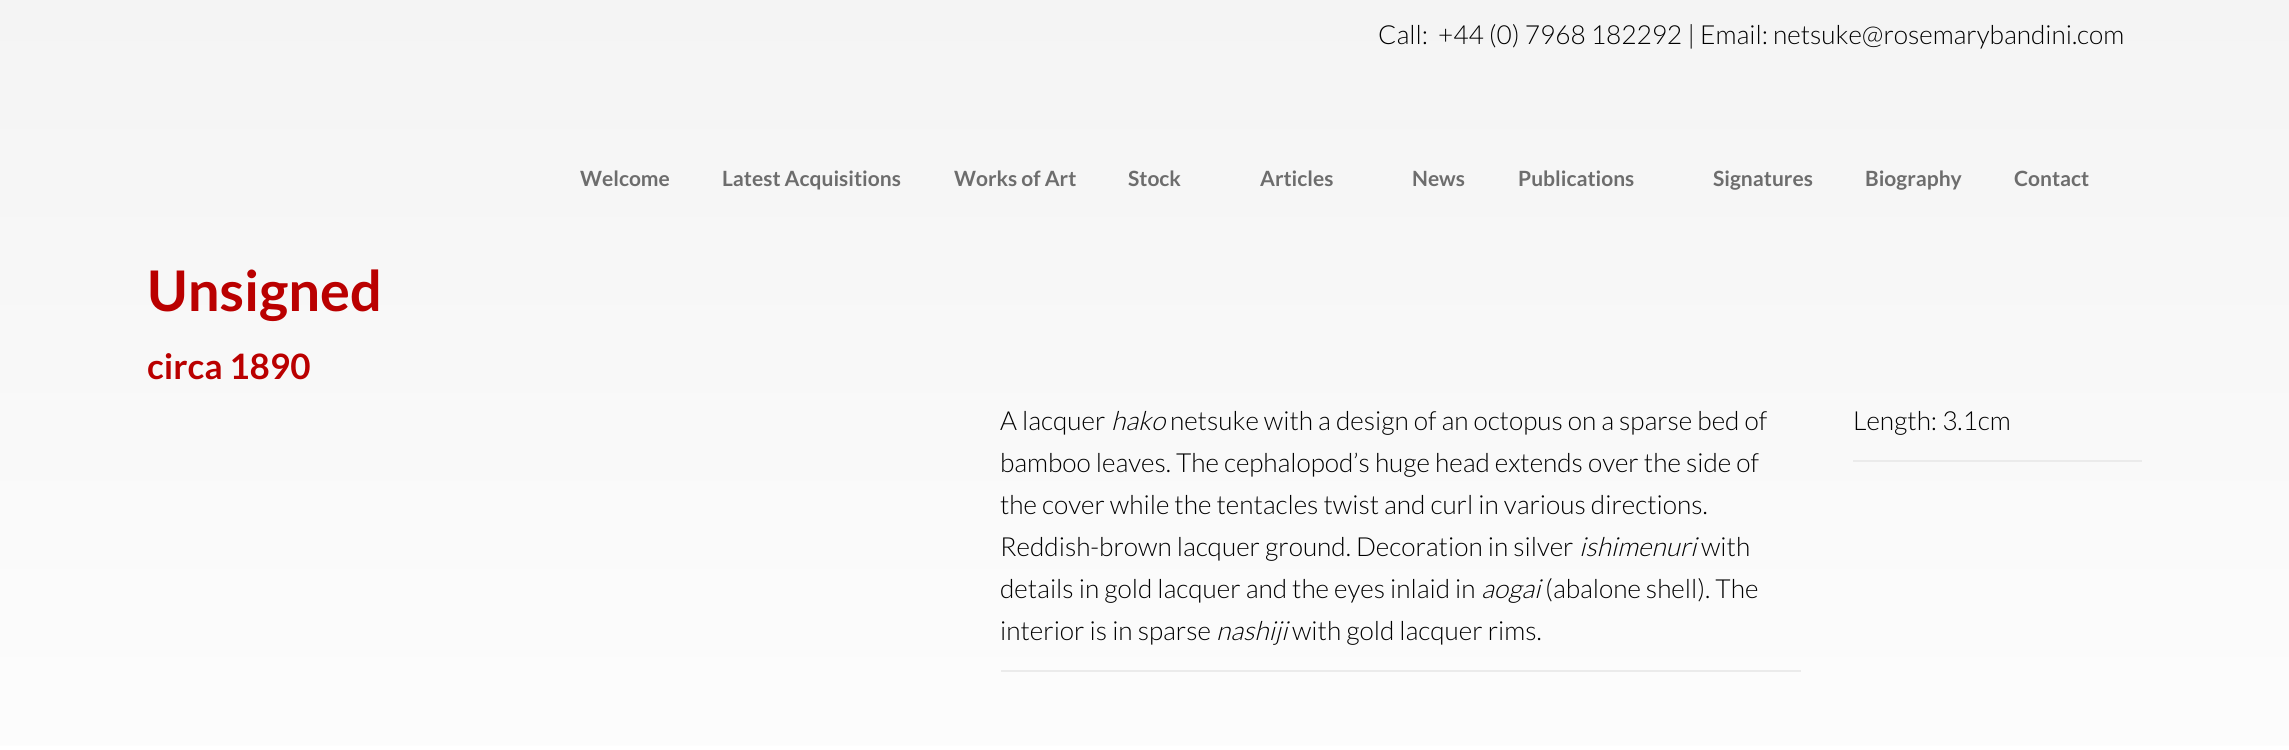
#include <cairo/cairo.h>
#include <math.h>
#include <stddef.h>

typedef struct { double x, y; const char *s; } line_t;
static cairo_t *cr;

static void rgb(unsigned color)
{
	cairo_set_source_rgb(cr, (color >> 16) / 255.0, (color >> 8 & 255) / 255.0, (color & 255) / 255.0);
}

int main(void) {
	cairo_surface_t *surface = cairo_image_surface_create(CAIRO_FORMAT_RGB24, 2289, 750);
	cr = cairo_create(surface);
	cairo_font_options_t *options = cairo_font_options_create();
	cairo_font_options_set_hint_metrics(options, CAIRO_HINT_METRICS_OFF);
	cairo_font_options_set_hint_style(options, CAIRO_HINT_STYLE_NONE);
	cairo_set_font_options(cr, options);
	cairo_set_miter_limit(cr, 4);
	cairo_pattern_t *gradient;
	rgb(0xffffff);
	cairo_paint(cr);
	gradient = cairo_pattern_create_linear(0, 0, 0, 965);
	cairo_pattern_add_color_stop_rgba(gradient, 0, 0.957, 0.957, 0.957, 1);
	cairo_pattern_add_color_stop_rgba(gradient, 1, 1, 1, 1, 1);
	cairo_set_source(cr, gradient);
	cairo_pattern_destroy(gradient);
	cairo_rectangle(cr, 0, 0, 2289, 746);
	cairo_fill(cr);
	rgb(0xebebeb);
	cairo_rectangle(cr, 1001, 670, 800, 2);
	cairo_fill(cr);
	cairo_rectangle(cr, 1853, 460, 289, 2);
	cairo_fill(cr);
	cairo_select_font_face(cr, "Lato Light", CAIRO_FONT_SLANT_NORMAL, CAIRO_FONT_WEIGHT_NORMAL);
	cairo_set_font_size(cr, 26.25);
	rgb(0x000000);
	cairo_move_to(cr, 1378, 44);
	cairo_show_text(cr, "Call:");
	cairo_move_to(cr, 1438, 44);
	cairo_show_text(cr, "+44 (0) 7968 182292 | Email: netsuke@rosemarybandini.com");
	cairo_select_font_face(cr, "Lato", CAIRO_FONT_SLANT_NORMAL, CAIRO_FONT_WEIGHT_BOLD);
	cairo_set_font_size(cr, 21);
	rgb(0x6d6d6d);
	{
		static const line_t items[] = {
			{580, 186, "Welcome"},
			{722, 186, "Latest Acquisitions"},
			{954, 186, "Works of Art"},
			{1128, 186, "Stock"},
			{1260, 186, "Articles"},
			{1412, 186, "News"},
			{1518, 186, "Publications"},
			{1713, 186, "Signatures"},
			{1865, 186, "Biography"},
			{2014, 186, "Contact"},
		};
		for (size_t i = 0; i < sizeof items / sizeof *items; i++) {
			cairo_move_to(cr, items[i].x, items[i].y);
			cairo_show_text(cr, items[i].s);
		}
	}
	cairo_set_font_size(cr, 56);
	rgb(0xba0000);
	cairo_move_to(cr, 147, 311);
	cairo_show_text(cr, "Unsigned");
	cairo_set_font_size(cr, 35);
	cairo_move_to(cr, 147, 379);
	cairo_show_text(cr, "circa 1890");
	cairo_select_font_face(cr, "Lato Light", CAIRO_FONT_SLANT_NORMAL, CAIRO_FONT_WEIGHT_NORMAL);
	cairo_set_font_size(cr, 26.25);
	rgb(0x000000);
	cairo_move_to(cr, 1000, 430);
	cairo_show_text(cr, "A lacquer");
	cairo_select_font_face(cr, "Lato Light", CAIRO_FONT_SLANT_ITALIC, CAIRO_FONT_WEIGHT_NORMAL);
	cairo_move_to(cr, 1111, 430);
	cairo_show_text(cr, "hako");
	cairo_select_font_face(cr, "Lato Light", CAIRO_FONT_SLANT_NORMAL, CAIRO_FONT_WEIGHT_NORMAL);
	{
		static const line_t items[] = {
			{1170, 430, "netsuke with a design of an octopus on a sparse bed of"},
			{1000, 472, "bamboo leaves. The cephalopod’s huge head extends over the side of"},
			{1000, 514, "the cover while the tentacles twist and curl in various directions."},
			{1000, 556, "Reddish-brown lacquer ground. Decoration in silver"},
		};
		for (size_t i = 0; i < sizeof items / sizeof *items; i++) {
			cairo_move_to(cr, items[i].x, items[i].y);
			cairo_show_text(cr, items[i].s);
		}
	}
	cairo_select_font_face(cr, "Lato Light", CAIRO_FONT_SLANT_ITALIC, CAIRO_FONT_WEIGHT_NORMAL);
	cairo_move_to(cr, 1579, 556);
	cairo_show_text(cr, "ishimenuri");
	cairo_select_font_face(cr, "Lato Light", CAIRO_FONT_SLANT_NORMAL, CAIRO_FONT_WEIGHT_NORMAL);
	cairo_move_to(cr, 1701, 556);
	cairo_show_text(cr, "with");
	cairo_move_to(cr, 1000, 598);
	cairo_show_text(cr, "details in gold lacquer and the eyes inlaid in");
	cairo_select_font_face(cr, "Lato Light", CAIRO_FONT_SLANT_ITALIC, CAIRO_FONT_WEIGHT_NORMAL);
	cairo_move_to(cr, 1481, 598);
	cairo_show_text(cr, "aogai");
	cairo_select_font_face(cr, "Lato Light", CAIRO_FONT_SLANT_NORMAL, CAIRO_FONT_WEIGHT_NORMAL);
	cairo_move_to(cr, 1545, 598);
	cairo_show_text(cr, "(abalone shell). The");
	cairo_move_to(cr, 1000, 640);
	cairo_show_text(cr, "interior is in sparse");
	cairo_select_font_face(cr, "Lato Light", CAIRO_FONT_SLANT_ITALIC, CAIRO_FONT_WEIGHT_NORMAL);
	cairo_move_to(cr, 1216, 640);
	cairo_show_text(cr, "nashiji");
	cairo_select_font_face(cr, "Lato Light", CAIRO_FONT_SLANT_NORMAL, CAIRO_FONT_WEIGHT_NORMAL);
	cairo_move_to(cr, 1292, 640);
	cairo_show_text(cr, "with gold lacquer rims.");
	cairo_move_to(cr, 1853, 430);
	cairo_show_text(cr, "Length: 3.1cm");
	cairo_surface_write_to_png(surface, "page.png");
	cairo_font_options_destroy(options);
	cairo_destroy(cr);
	cairo_surface_destroy(surface);
	return 0;
}
